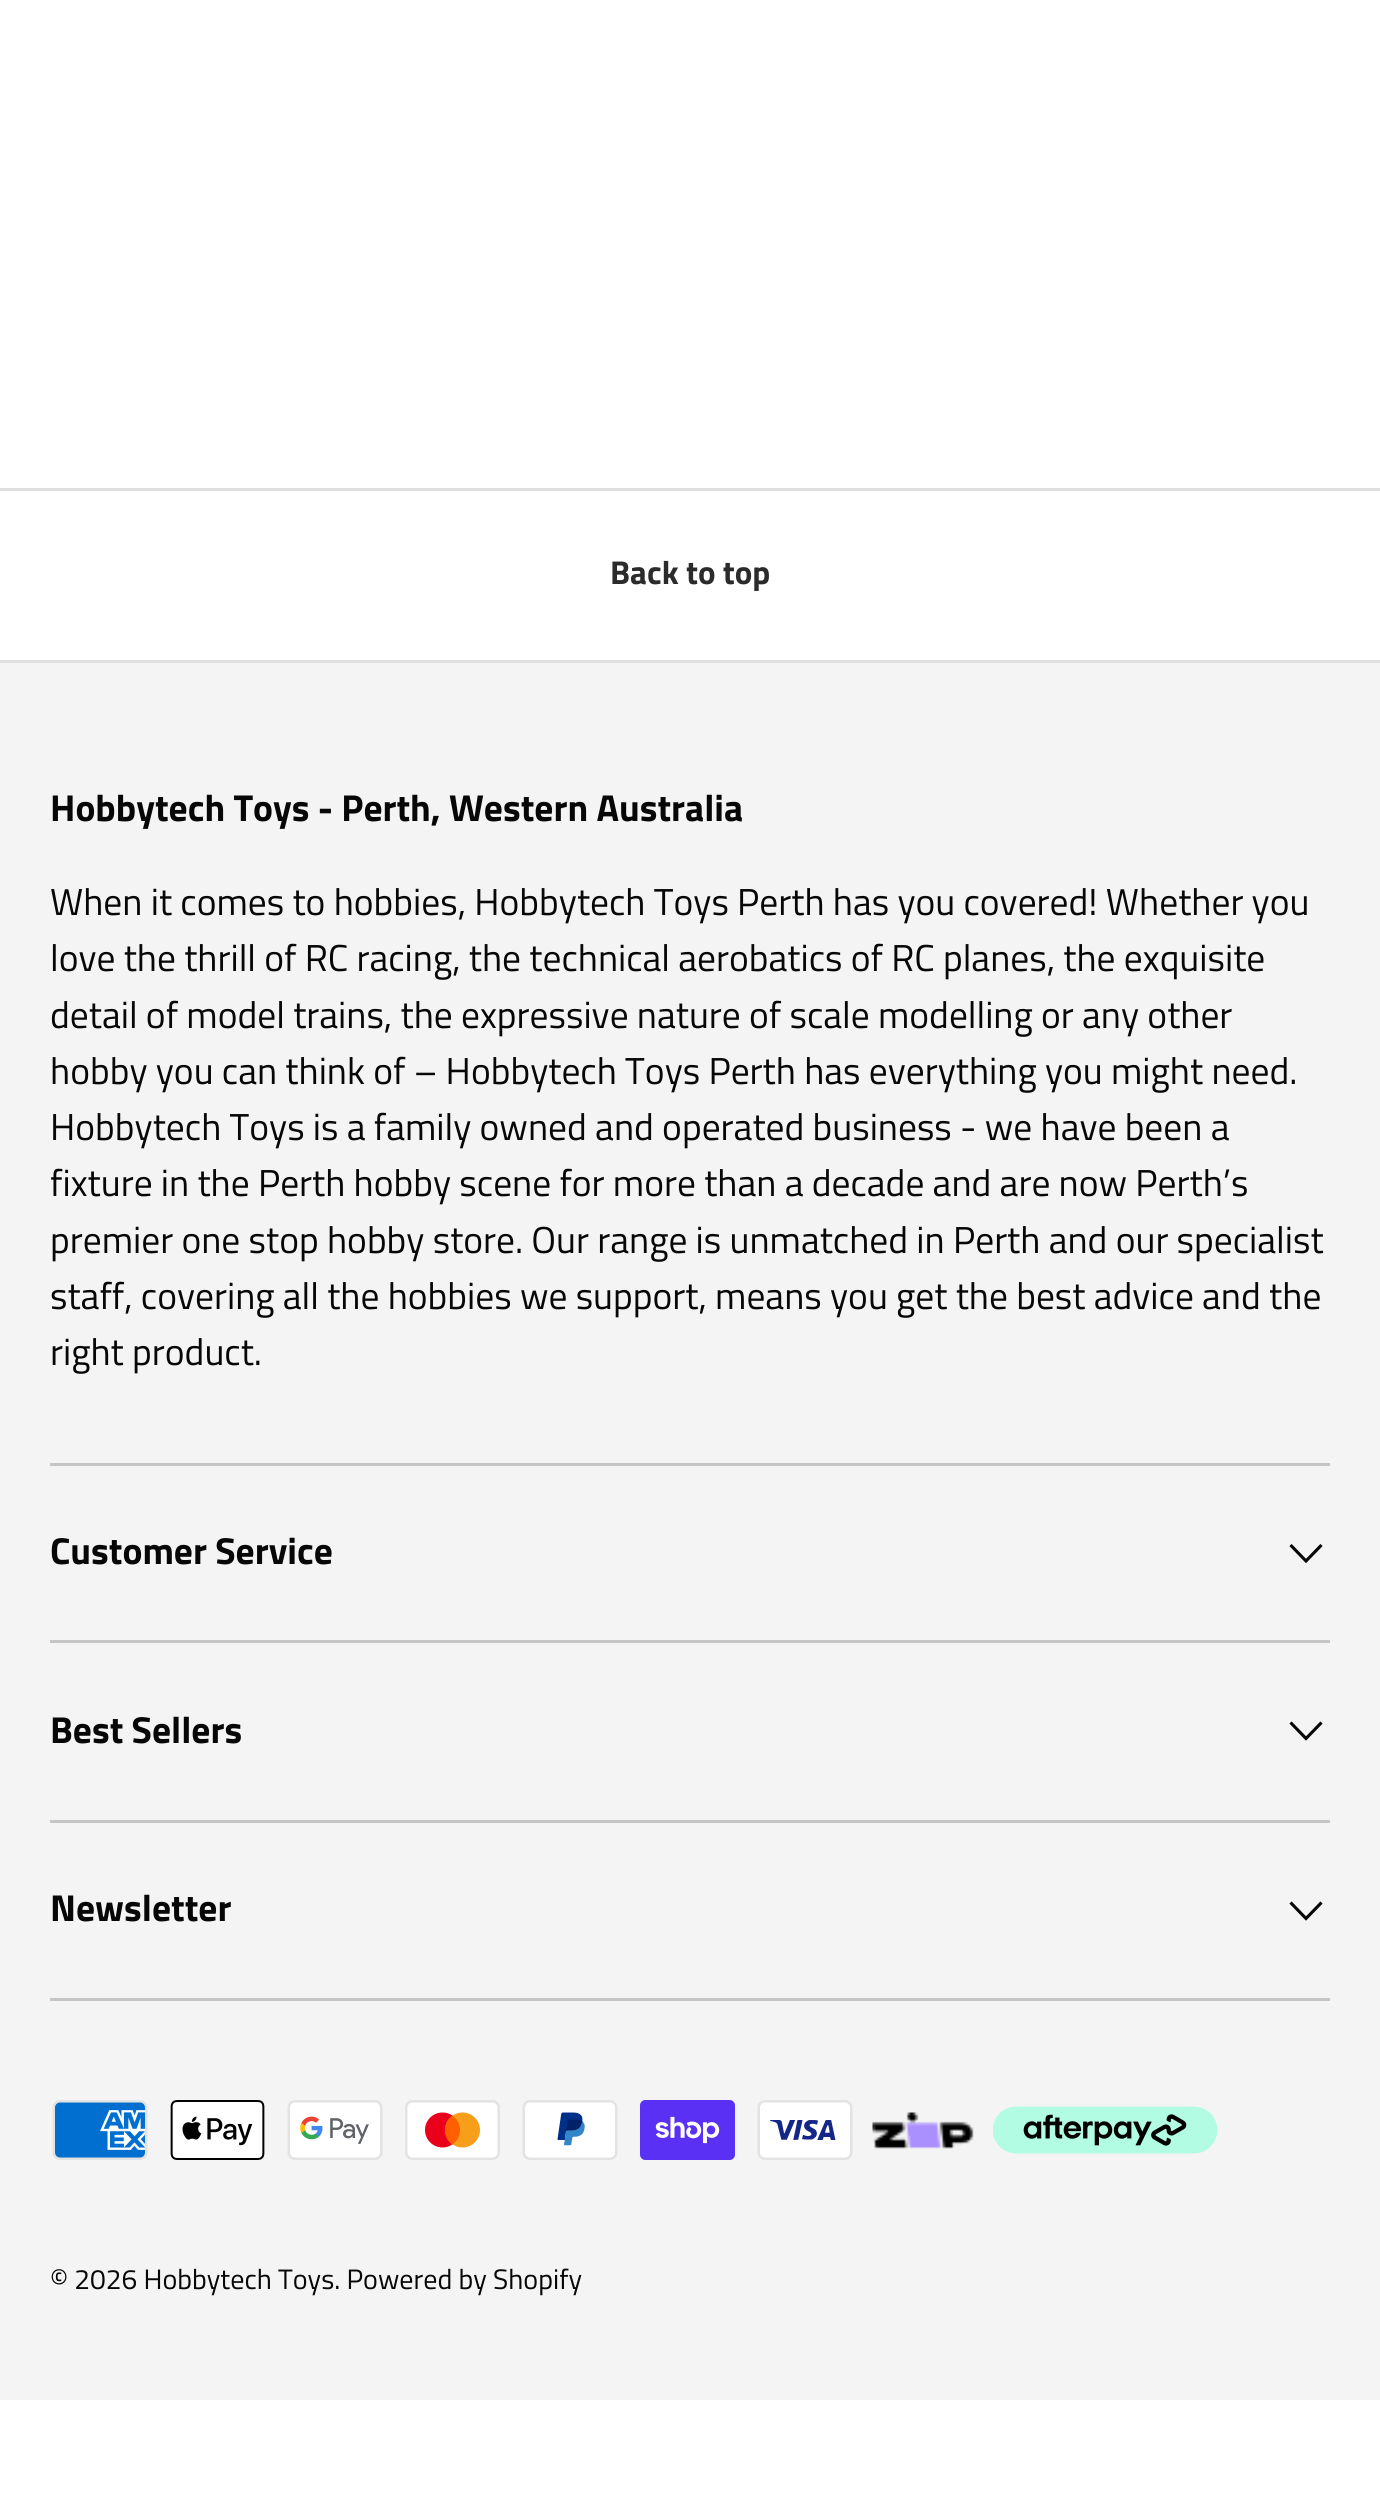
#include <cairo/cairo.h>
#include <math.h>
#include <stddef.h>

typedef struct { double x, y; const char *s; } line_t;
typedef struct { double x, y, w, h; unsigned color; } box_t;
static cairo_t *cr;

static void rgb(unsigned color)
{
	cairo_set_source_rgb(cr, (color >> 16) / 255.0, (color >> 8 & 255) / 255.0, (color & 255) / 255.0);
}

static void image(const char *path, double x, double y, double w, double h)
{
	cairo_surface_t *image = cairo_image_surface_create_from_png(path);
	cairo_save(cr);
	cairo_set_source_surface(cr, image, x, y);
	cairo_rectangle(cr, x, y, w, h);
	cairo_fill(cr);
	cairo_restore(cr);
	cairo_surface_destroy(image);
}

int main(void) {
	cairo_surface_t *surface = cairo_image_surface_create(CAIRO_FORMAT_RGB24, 1380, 2506);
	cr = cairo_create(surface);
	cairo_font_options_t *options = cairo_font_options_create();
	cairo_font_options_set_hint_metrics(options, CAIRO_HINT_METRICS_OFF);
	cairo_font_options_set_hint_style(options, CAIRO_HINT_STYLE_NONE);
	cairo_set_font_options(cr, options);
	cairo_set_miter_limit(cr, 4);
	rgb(0xffffff);
	cairo_paint(cr);
	{
		static const box_t items[] = {
			{0, 488, 1380, 3, 0xdfdfdf},
			{0, 660, 1380, 3, 0xdfdfdf},
			{0, 663, 1380, 1737, 0xf4f4f4},
			{50, 1463, 1280, 3, 0xc5c5c5},
			{50, 1640, 1280, 3, 0xc5c5c5},
		};
		for (size_t i = 0; i < sizeof items / sizeof *items; i++) {
			rgb(items[i].color);
			cairo_rectangle(cr, items[i].x, items[i].y, items[i].w, items[i].h);
			cairo_fill(cr);
		}
	}
	cairo_new_path(cr);
	cairo_move_to(cr, 1321.5, 1545);
	cairo_line_to(cr, 1306, 1561);
	cairo_line_to(cr, 1290.5, 1545);
	rgb(0x070707);
	cairo_set_line_width(cr, 3.1);
	cairo_stroke(cr);
	rgb(0xc5c5c5);
	cairo_rectangle(cr, 50, 1820, 1280, 3);
	cairo_fill(cr);
	cairo_new_path(cr);
	cairo_move_to(cr, 1321.5, 1722.5);
	cairo_line_to(cr, 1306, 1738.5);
	cairo_line_to(cr, 1290.5, 1722.5);
	rgb(0x070707);
	cairo_stroke(cr);
	rgb(0xc5c5c5);
	cairo_rectangle(cr, 50, 1998, 1280, 3);
	cairo_fill(cr);
	cairo_new_path(cr);
	cairo_move_to(cr, 1321.5, 1902.5);
	cairo_line_to(cr, 1306, 1918.5);
	cairo_line_to(cr, 1290.5, 1902.5);
	rgb(0x070707);
	cairo_stroke(cr);
	image("img/1.png", 52, 2100, 96, 60);
	image("img/2.png", 170, 2100, 95, 60);
	image("img/3.png", 287, 2100, 96, 60);
	image("img/4.png", 405, 2100, 95, 60);
	image("img/5.png", 522, 2100, 96, 60);
	image("img/6.png", 640, 2100, 95, 60);
	image("img/7.png", 757, 2100, 96, 60);
	image("img/8.png", 872, 2112, 102, 37);
	image("img/9.png", 993, 2106, 225, 48);
	cairo_select_font_face(cr, "Titillium Web", CAIRO_FONT_SLANT_NORMAL, CAIRO_FONT_WEIGHT_BOLD);
	cairo_set_font_size(cr, 33);
	rgb(0x2a2b2a);
	cairo_move_to(cr, 610, 584);
	cairo_show_text(cr, "Back to top");
	cairo_set_font_size(cr, 37.5);
	rgb(0x070707);
	cairo_move_to(cr, 50, 821);
	cairo_show_text(cr, "Hobbytech Toys - Perth, Western Australia");
	cairo_select_font_face(cr, "Titillium Web", CAIRO_FONT_SLANT_NORMAL, CAIRO_FONT_WEIGHT_NORMAL);
	{
		static const line_t items[] = {
			{50, 915, "When it comes to hobbies, Hobbytech Toys Perth has you covered! Whether you"},
			{50, 971, "love the thrill of RC racing, the technical aerobatics of RC planes, the exquisite"},
			{50, 1028, "detail of model trains, the expressive nature of scale modelling or any other"},
			{50, 1084, "hobby you can think of – Hobbytech Toys Perth has everything you might need."},
			{50, 1140, "Hobbytech Toys is a family owned and operated business - we have been a"},
			{50, 1196, "fixture in the Perth hobby scene for more than a decade and are now Perth’s"},
			{50, 1253, "premier one stop hobby store. Our range is unmatched in Perth and our specialist"},
			{50, 1309, "staff, covering all the hobbies we support, means you get the best advice and the"},
			{50, 1365, "right product."},
		};
		for (size_t i = 0; i < sizeof items / sizeof *items; i++) {
			cairo_move_to(cr, items[i].x, items[i].y);
			cairo_show_text(cr, items[i].s);
		}
	}
	cairo_select_font_face(cr, "Titillium Web", CAIRO_FONT_SLANT_NORMAL, CAIRO_FONT_WEIGHT_BOLD);
	{
		static const line_t items[] = {
			{50, 1564, "Customer Service"},
			{50, 1743, "Best Sellers"},
			{50, 1921, "Newsletter"},
		};
		for (size_t i = 0; i < sizeof items / sizeof *items; i++) {
			cairo_move_to(cr, items[i].x, items[i].y);
			cairo_show_text(cr, items[i].s);
		}
	}
	cairo_select_font_face(cr, "Titillium Web", CAIRO_FONT_SLANT_NORMAL, CAIRO_FONT_WEIGHT_NORMAL);
	cairo_set_font_size(cr, 28.1);
	cairo_move_to(cr, 50, 2289);
	cairo_show_text(cr, "© 2026 Hobbytech Toys. Powered by Shopify");
	cairo_surface_write_to_png(surface, "page.png");
	cairo_font_options_destroy(options);
	cairo_destroy(cr);
	cairo_surface_destroy(surface);
	return 0;
}
